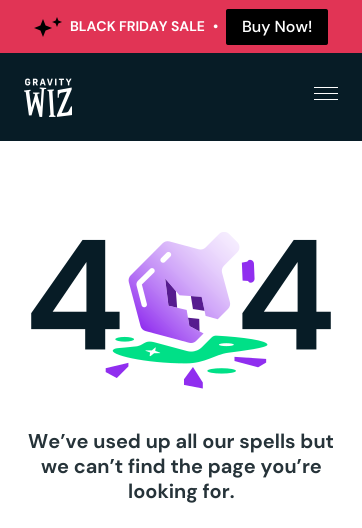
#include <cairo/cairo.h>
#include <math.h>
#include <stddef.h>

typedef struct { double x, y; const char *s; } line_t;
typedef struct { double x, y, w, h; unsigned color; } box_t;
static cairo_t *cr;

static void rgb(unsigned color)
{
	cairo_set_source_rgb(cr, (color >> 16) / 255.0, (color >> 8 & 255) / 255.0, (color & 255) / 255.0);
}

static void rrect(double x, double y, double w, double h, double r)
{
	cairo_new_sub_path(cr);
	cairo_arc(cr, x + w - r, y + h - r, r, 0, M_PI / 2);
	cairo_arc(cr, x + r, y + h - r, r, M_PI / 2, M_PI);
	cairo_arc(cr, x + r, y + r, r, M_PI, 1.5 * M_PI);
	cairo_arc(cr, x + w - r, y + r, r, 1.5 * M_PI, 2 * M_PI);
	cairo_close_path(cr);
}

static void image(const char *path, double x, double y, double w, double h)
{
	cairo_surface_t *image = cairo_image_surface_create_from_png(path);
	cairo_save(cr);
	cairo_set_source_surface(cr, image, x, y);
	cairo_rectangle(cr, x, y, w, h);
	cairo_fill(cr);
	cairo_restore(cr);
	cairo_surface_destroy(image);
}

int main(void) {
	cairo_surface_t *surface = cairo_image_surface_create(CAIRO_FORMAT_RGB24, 362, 528);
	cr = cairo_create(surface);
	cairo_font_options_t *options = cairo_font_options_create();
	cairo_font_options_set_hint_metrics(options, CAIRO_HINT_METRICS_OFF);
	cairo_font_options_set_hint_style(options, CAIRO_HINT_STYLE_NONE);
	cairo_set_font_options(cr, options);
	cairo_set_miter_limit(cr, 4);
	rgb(0xffffff);
	cairo_paint(cr);
	rgb(0xe13455);
	cairo_rectangle(cr, 0, 0, 362, 53);
	cairo_fill(cr);
	image("img/1.png", 34, 17, 28, 20);
	rgb(0x000000);
	rrect(226, 9, 102, 36, 2);
	cairo_fill(cr);
	rgb(0x071c26);
	cairo_rectangle(cr, 0, 53, 362, 88);
	cairo_fill(cr);
	image("img/2.png", 24, 78, 48, 39);
	{
		static const box_t items[] = {
			{314, 87, 24, 1, 0xffffff},
			{314, 93, 24, 1, 0xffffff},
			{314, 99, 24, 1, 0xffffff},
		};
		for (size_t i = 0; i < sizeof items / sizeof *items; i++) {
			rgb(items[i].color);
			cairo_rectangle(cr, items[i].x, items[i].y, items[i].w, items[i].h);
			cairo_fill(cr);
		}
	}
	image("img/3.png", 31, 232, 300, 157);
	cairo_select_font_face(cr, "DM Sans", CAIRO_FONT_SLANT_NORMAL, CAIRO_FONT_WEIGHT_BOLD);
	cairo_set_font_size(cr, 14);
	cairo_move_to(cr, 70, 31);
	cairo_show_text(cr, "BLACK FRIDAY SALE");
	cairo_move_to(cr, 213, 31);
	cairo_show_text(cr, "•");
	cairo_select_font_face(cr, "DM Sans Medium", CAIRO_FONT_SLANT_NORMAL, CAIRO_FONT_WEIGHT_NORMAL);
	cairo_set_font_size(cr, 16);
	cairo_move_to(cr, 242, 32);
	cairo_show_text(cr, "Buy Now!");
	cairo_select_font_face(cr, "DM Sans", CAIRO_FONT_SLANT_NORMAL, CAIRO_FONT_WEIGHT_BOLD);
	cairo_set_font_size(cr, 20);
	rgb(0x263339);
	{
		static const line_t items[] = {
			{28, 448, "We’ve used up all our spells but"},
			{41, 473, "we can’t find the page you’re"},
			{128, 498, "looking for."},
		};
		for (size_t i = 0; i < sizeof items / sizeof *items; i++) {
			cairo_move_to(cr, items[i].x, items[i].y);
			cairo_show_text(cr, items[i].s);
		}
	}
	cairo_surface_write_to_png(surface, "page.png");
	cairo_font_options_destroy(options);
	cairo_destroy(cr);
	cairo_surface_destroy(surface);
	return 0;
}
